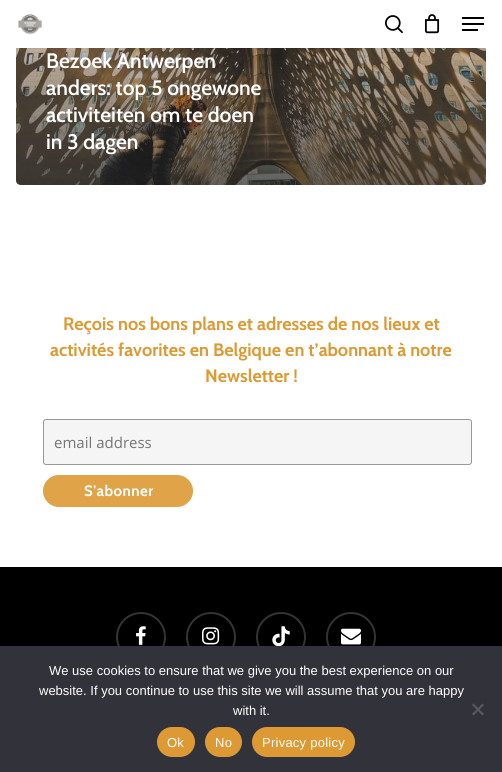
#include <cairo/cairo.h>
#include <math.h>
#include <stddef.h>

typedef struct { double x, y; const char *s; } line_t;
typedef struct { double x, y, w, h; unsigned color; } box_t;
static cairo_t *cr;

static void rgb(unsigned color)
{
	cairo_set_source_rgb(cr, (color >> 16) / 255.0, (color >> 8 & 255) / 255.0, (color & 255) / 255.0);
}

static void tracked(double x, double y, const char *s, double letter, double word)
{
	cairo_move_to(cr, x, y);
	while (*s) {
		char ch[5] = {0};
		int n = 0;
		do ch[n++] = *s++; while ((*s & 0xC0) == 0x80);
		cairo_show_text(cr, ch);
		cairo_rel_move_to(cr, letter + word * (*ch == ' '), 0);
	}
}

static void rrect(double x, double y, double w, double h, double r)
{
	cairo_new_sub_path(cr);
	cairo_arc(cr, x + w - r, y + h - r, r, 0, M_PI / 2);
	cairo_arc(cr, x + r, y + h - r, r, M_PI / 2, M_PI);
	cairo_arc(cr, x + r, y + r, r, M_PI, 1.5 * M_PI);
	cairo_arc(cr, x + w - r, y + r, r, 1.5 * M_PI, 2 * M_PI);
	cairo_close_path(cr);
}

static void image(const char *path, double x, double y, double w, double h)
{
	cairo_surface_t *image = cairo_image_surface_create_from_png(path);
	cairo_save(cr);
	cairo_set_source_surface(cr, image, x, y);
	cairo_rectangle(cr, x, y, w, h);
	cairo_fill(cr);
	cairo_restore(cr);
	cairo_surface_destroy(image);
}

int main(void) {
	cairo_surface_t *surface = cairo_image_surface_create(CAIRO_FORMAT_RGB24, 502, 772);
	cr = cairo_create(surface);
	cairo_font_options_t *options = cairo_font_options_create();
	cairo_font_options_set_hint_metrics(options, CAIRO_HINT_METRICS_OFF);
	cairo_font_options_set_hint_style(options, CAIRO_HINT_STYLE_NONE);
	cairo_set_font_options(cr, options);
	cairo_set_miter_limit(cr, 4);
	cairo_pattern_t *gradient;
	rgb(0xffffff);
	cairo_paint(cr);
	image("img/4.png", 16, 48, 470, 137);
	gradient = cairo_pattern_create_linear(252, -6, 252, 186);
	cairo_pattern_add_color_stop_rgba(gradient, 0, 0.137, 0.137, 0.137, 0);
	cairo_pattern_add_color_stop_rgba(gradient, 1, 0.137, 0.137, 0.137, 0.65);
	cairo_set_source(cr, gradient);
	cairo_pattern_destroy(gradient);
	cairo_new_path(cr);
	cairo_move_to(cr, 16, -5);
	cairo_line_to(cr, 486, -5);
	cairo_line_to(cr, 486, 180);
	cairo_curve_to(cr, 486, 183, 484, 185, 481, 185);
	cairo_line_to(cr, 21, 185);
	cairo_curve_to(cr, 18, 185, 16, 183, 16, 180);
	cairo_close_path(cr);
	cairo_fill(cr);
	rgb(0xffffff);
	cairo_rectangle(cr, 16, 0, 470, 48);
	cairo_fill(cr);
	image("img/1.png", 18, 14, 24, 21);
	image("img/2.png", 385, 15, 18, 19);
	image("img/3.png", 425, 14, 15, 20);
	{
		static const box_t items[] = {
			{462, 17, 22, 2, 0x000000},
			{462, 29, 16, 2, 0x000000},
			{462, 23, 22, 2, 0x000000},
		};
		for (size_t i = 0; i < sizeof items / sizeof *items; i++) {
			rgb(items[i].color);
			cairo_rectangle(cr, items[i].x, items[i].y, items[i].w, items[i].h);
			cairo_fill(cr);
		}
	}
	rgb(0xf5f5f5);
	rrect(43.5, 419.5, 428, 45, 2.5);
	cairo_fill_preserve(cr);
	rgb(0x999999);
	cairo_set_line_width(cr, 1);
	cairo_stroke(cr);
	rgb(0xe0a347);
	rrect(43, 475, 150, 32, 16);
	cairo_fill(cr);
	rgb(0x000000);
	cairo_rectangle(cr, 0, 567, 502, 79);
	cairo_fill(cr);
	image("img/5.png", 136, 626, 10, 19);
	cairo_arc(cr, 141, 637, 24, 0, 2 * M_PI);
	rgb(0x333333);
	cairo_set_line_width(cr, 2);
	cairo_stroke(cr);
	image("img/6.png", 202, 627, 18, 18);
	cairo_arc(cr, 211, 637, 24, 0, 2 * M_PI);
	cairo_stroke(cr);
	image("img/7.png", 272, 626, 18, 20);
	cairo_arc(cr, 281, 637, 24, 0, 2 * M_PI);
	cairo_stroke(cr);
	image("img/8.png", 341, 628, 20, 17);
	cairo_arc(cr, 351, 637, 24, 0, 2 * M_PI);
	cairo_stroke(cr);
	rgb(0x32323a);
	cairo_rectangle(cr, 0, 646, 502, 126);
	cairo_fill(cr);
	rgb(0x59595d);
	cairo_new_path(cr);
	cairo_move_to(cr, 482.5, 703.5);
	cairo_line_to(cr, 484, 705);
	cairo_line_to(cr, 473.5, 715.5);
	cairo_line_to(cr, 472, 714);
	cairo_close_path(cr);
	cairo_fill(cr);
	cairo_new_path(cr);
	cairo_move_to(cr, 472, 705);
	cairo_line_to(cr, 473.5, 703.5);
	cairo_line_to(cr, 484, 714);
	cairo_line_to(cr, 482.5, 715.5);
	cairo_close_path(cr);
	cairo_fill(cr);
	rgb(0xdd9933);
	rrect(157, 727, 38, 30, 15);
	cairo_fill(cr);
	rrect(205, 727, 37, 30, 15);
	cairo_fill(cr);
	rrect(252, 727, 103, 30, 15);
	cairo_fill(cr);
	cairo_select_font_face(cr, "Cabin SemiBold", CAIRO_FONT_SLANT_NORMAL, CAIRO_FONT_WEIGHT_NORMAL);
	cairo_set_font_size(cr, 21);
	rgb(0xffffff);
	{
		static const line_t items[] = {
			{46, 68, "Bezoek Antwerpen"},
			{46, 95, "anders: top 5 ongewone"},
			{46, 122, "activiteiten om te doen"},
			{46, 149, "in 3 dagen"},
		};
		for (size_t i = 0; i < sizeof items / sizeof *items; i++) {
			cairo_move_to(cr, items[i].x, items[i].y);
			cairo_show_text(cr, items[i].s);
		}
	}
	cairo_select_font_face(cr, "Cabin", CAIRO_FONT_SLANT_NORMAL, CAIRO_FONT_WEIGHT_BOLD);
	cairo_set_font_size(cr, 18);
	rgb(0xdd9933);
	{
		static const line_t items[] = {
			{63, 330, "Reçois nos bons plans et adresses de nos lieux et"},
			{50, 356, "activités favorites en Belgique en t’abonnant à notre"},
			{205, 382, "Newsletter !"},
		};
		for (size_t i = 0; i < sizeof items / sizeof *items; i++) {
			cairo_move_to(cr, items[i].x, items[i].y);
			cairo_show_text(cr, items[i].s);
		}
	}
	cairo_select_font_face(cr, "Open Sans", CAIRO_FONT_SLANT_NORMAL, CAIRO_FONT_WEIGHT_NORMAL);
	cairo_set_font_size(cr, 15);
	rgb(0x757575);
	cairo_move_to(cr, 54, 448);
	cairo_show_text(cr, "email address");
	cairo_select_font_face(cr, "Cabin", CAIRO_FONT_SLANT_NORMAL, CAIRO_FONT_WEIGHT_BOLD);
	rgb(0xffffff);
	tracked(84, 496, "S'abonner", 0.5, 0);
	cairo_select_font_face(cr, "Liberation Sans", CAIRO_FONT_SLANT_NORMAL, CAIRO_FONT_WEIGHT_NORMAL);
	cairo_set_font_size(cr, 13);
	{
		static const line_t items[] = {
			{49, 675, "We use cookies to ensure that we give you the best experience on our"},
			{39, 695, "website. If you continue to use this site we will assume that you are happy"},
			{233, 715, "with it."},
		};
		for (size_t i = 0; i < sizeof items / sizeof *items; i++) {
			cairo_move_to(cr, items[i].x, items[i].y);
			cairo_show_text(cr, items[i].s);
		}
	}
	{
		static const line_t items[] = {
			{167, 747, "Ok"},
			{215, 747, "No"},
			{262, 747, "Privacy policy"},
		};
		for (size_t i = 0; i < sizeof items / sizeof *items; i++) {
			tracked(items[i].x, items[i].y, items[i].s, 0.25, 0);
		}
	}
	cairo_surface_write_to_png(surface, "page.png");
	cairo_font_options_destroy(options);
	cairo_destroy(cr);
	cairo_surface_destroy(surface);
	return 0;
}
